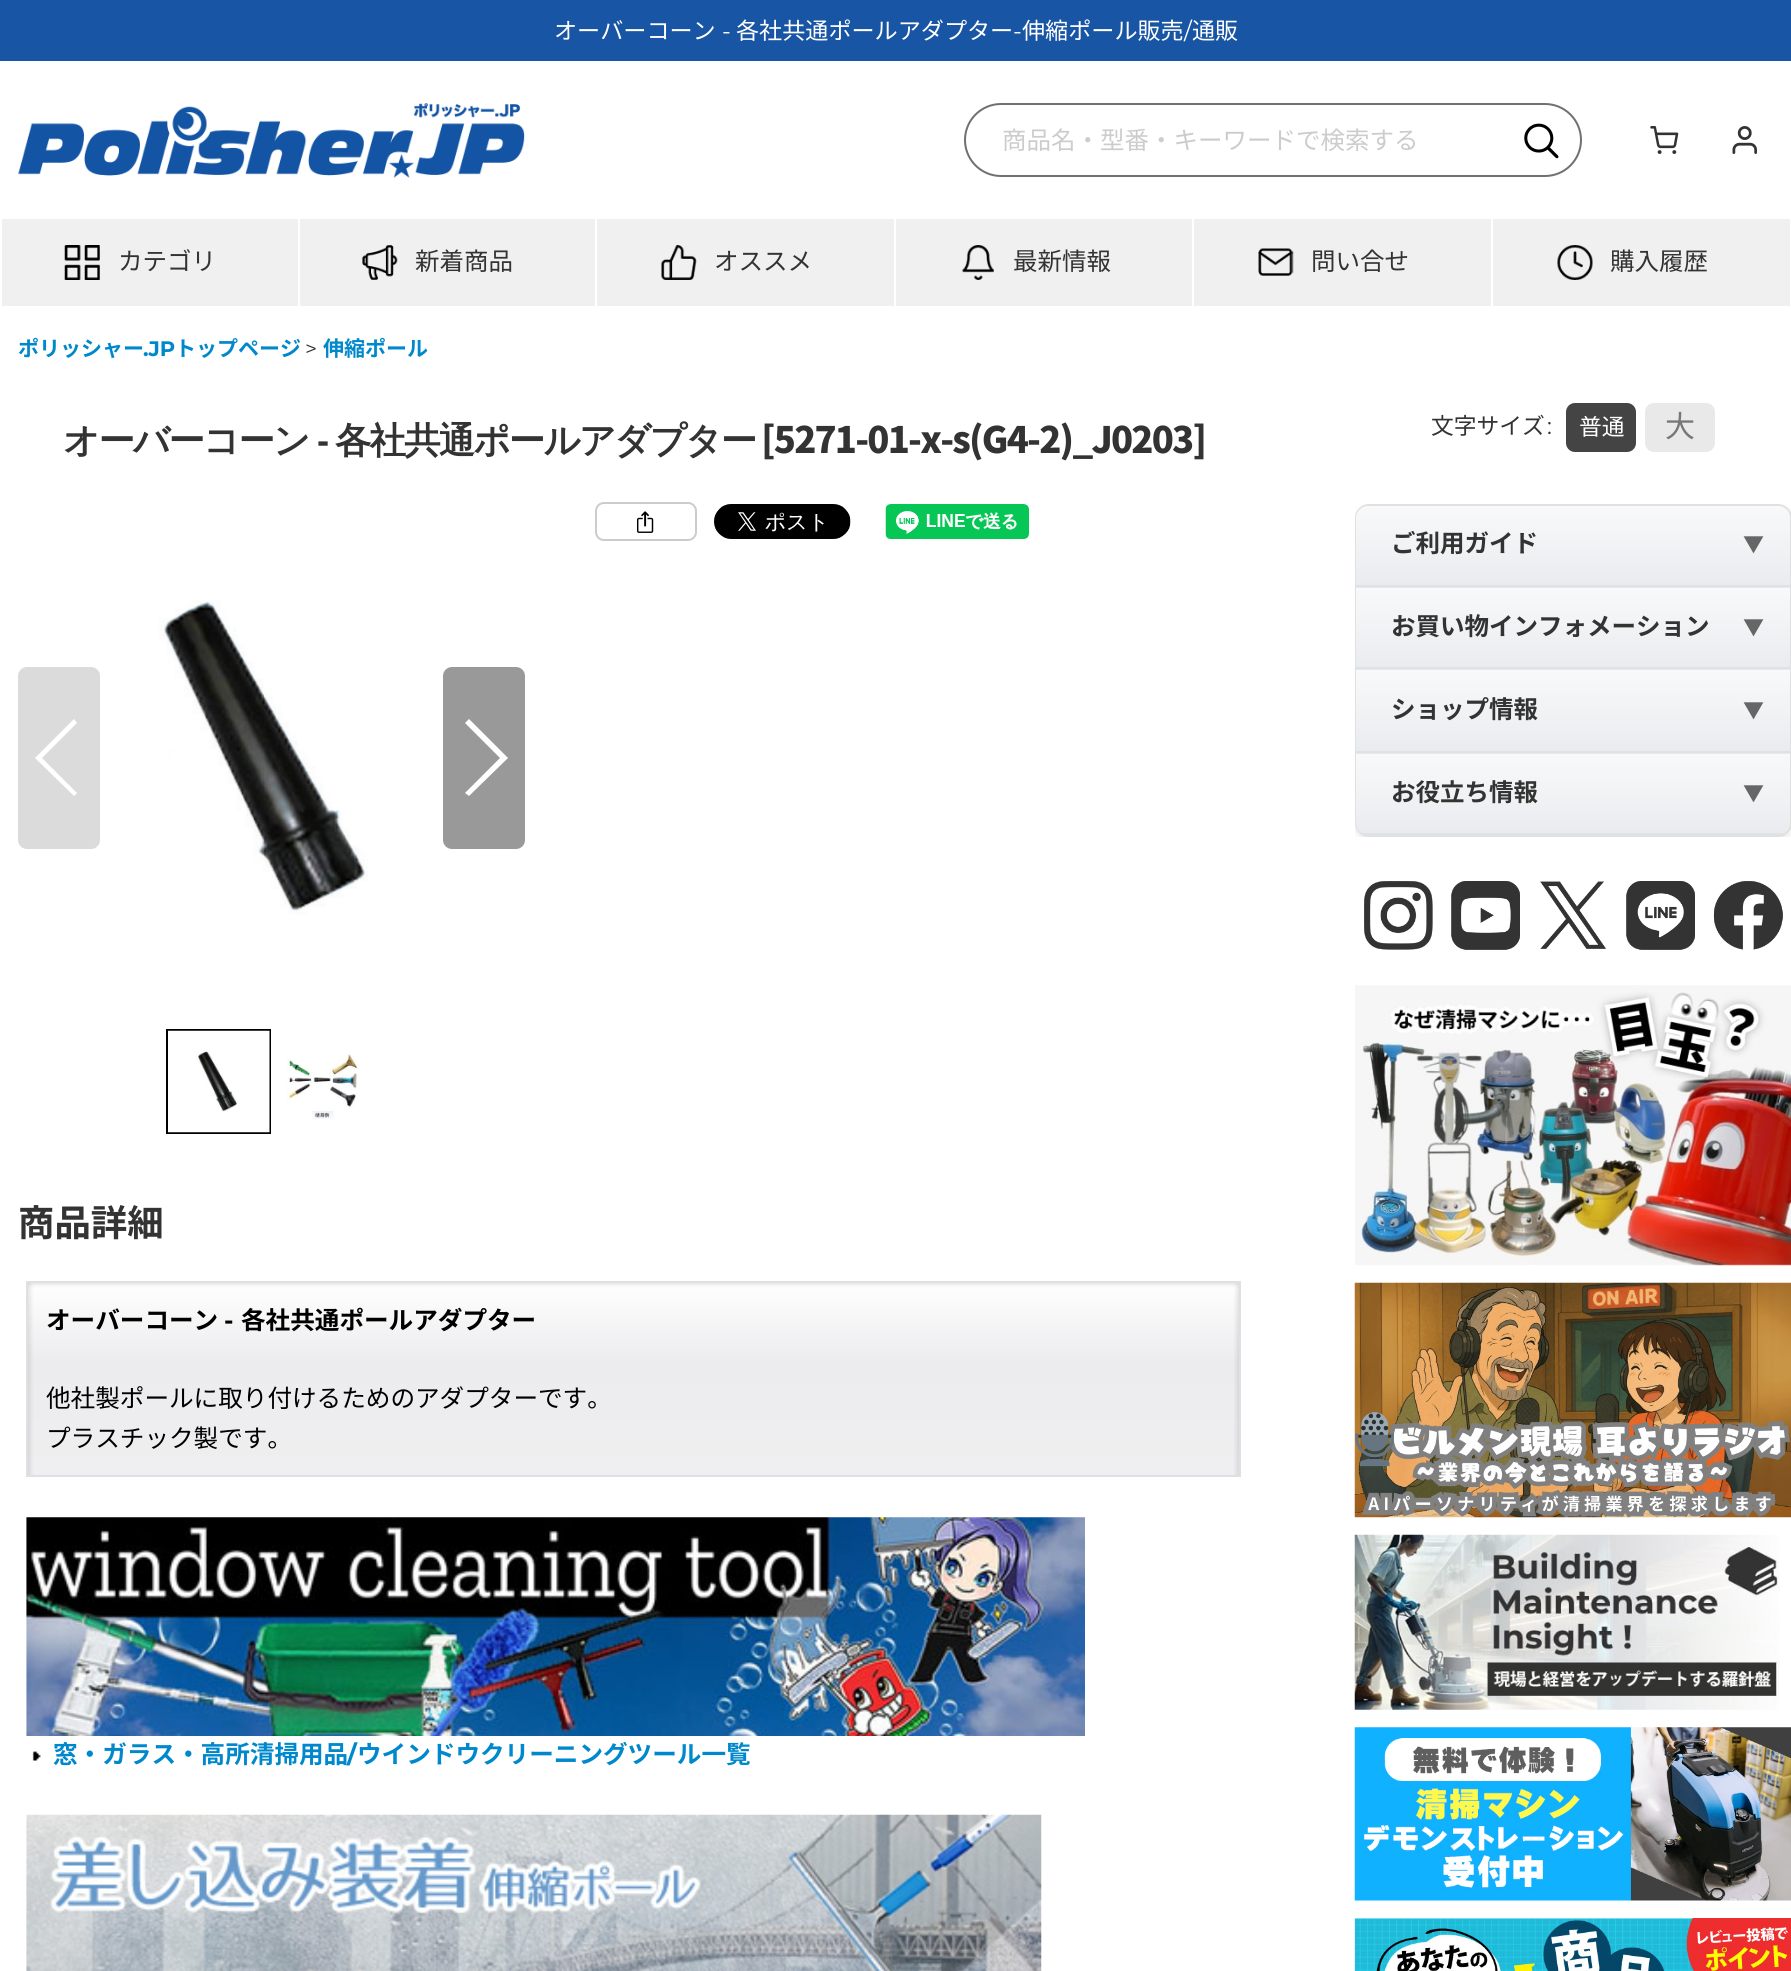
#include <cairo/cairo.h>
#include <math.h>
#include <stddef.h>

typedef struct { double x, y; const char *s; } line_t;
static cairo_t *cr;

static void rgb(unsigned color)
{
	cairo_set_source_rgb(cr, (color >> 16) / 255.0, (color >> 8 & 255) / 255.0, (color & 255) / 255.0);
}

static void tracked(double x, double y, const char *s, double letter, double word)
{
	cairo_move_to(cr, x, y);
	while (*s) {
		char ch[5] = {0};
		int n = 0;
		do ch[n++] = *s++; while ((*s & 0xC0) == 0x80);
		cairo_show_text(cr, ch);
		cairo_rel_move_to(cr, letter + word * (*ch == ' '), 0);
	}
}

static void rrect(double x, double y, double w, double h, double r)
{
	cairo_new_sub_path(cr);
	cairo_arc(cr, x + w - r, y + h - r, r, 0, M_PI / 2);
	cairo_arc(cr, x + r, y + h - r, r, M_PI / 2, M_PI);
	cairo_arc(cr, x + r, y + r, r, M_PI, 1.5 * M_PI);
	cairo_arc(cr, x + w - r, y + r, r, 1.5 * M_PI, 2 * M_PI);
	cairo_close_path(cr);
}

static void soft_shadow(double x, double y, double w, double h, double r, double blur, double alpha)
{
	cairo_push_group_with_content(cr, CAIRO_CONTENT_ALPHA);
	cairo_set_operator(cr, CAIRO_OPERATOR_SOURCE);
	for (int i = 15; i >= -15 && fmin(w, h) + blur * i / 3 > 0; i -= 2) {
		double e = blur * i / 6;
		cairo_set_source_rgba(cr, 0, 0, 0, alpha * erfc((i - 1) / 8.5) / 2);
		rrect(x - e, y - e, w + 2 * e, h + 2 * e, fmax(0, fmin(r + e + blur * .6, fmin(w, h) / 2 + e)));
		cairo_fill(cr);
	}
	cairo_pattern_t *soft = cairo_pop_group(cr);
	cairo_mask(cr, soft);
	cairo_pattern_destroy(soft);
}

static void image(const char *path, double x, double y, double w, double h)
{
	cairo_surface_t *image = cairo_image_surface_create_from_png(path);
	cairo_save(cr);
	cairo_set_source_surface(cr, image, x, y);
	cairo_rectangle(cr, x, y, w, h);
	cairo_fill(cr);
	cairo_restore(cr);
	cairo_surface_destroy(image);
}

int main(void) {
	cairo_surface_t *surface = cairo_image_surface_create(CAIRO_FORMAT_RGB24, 1791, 1971);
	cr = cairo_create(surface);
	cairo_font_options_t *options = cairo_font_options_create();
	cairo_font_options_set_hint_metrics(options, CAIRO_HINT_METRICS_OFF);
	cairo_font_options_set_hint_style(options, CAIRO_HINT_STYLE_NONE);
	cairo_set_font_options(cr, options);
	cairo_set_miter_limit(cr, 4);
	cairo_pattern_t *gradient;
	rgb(0xffffff);
	cairo_paint(cr);
	rgb(0x1855a4);
	cairo_rectangle(cr, 0, 0, 1791, 61);
	cairo_fill(cr);
	image("img/1.png", 18, 103, 507, 75);
	image("img/2.png", 1650, 126, 29, 28);
	image("img/3.png", 1732, 126, 25, 28);
	rrect(965, 104, 616, 72, 36);
	rgb(0x707070);
	cairo_stroke(cr);
	image("img/4.png", 1524, 123, 35, 36);
	rgb(0xf0f0f0);
	cairo_rectangle(cr, 2, 219, 1788, 87);
	cairo_fill(cr);
	rgb(0xffffff);
	cairo_rectangle(cr, 298, 219, 2, 87);
	cairo_fill(cr);
	image("img/5.png", 64, 245, 36, 35);
	cairo_rectangle(cr, 595, 219, 2, 87);
	cairo_fill(cr);
	image("img/6.png", 362, 245, 36, 35);
	cairo_rectangle(cr, 894, 219, 2, 87);
	cairo_fill(cr);
	image("img/7.png", 661, 245, 36, 35);
	cairo_rectangle(cr, 1192, 219, 2, 87);
	cairo_fill(cr);
	image("img/8.png", 962, 245, 32, 35);
	cairo_rectangle(cr, 1491, 219, 2, 87);
	cairo_fill(cr);
	image("img/9.png", 1258, 248, 36, 28);
	image("img/10.png", 1557, 245, 36, 35);
	rrect(596, 503, 100, 37, 8);
	rgb(0xcccccc);
	cairo_stroke(cr);
	image("img/11.png", 637, 511, 17, 22);
	image("img/12.png", 714, 504, 137, 35);
	image("img/13.png", 885, 504, 144, 35);
	image("img/14.png", 158, 600, 210, 315);
	rgb(0xdbdbdb);
	rrect(18, 667, 82, 182, 9);
	cairo_fill(cr);
	rgb(0xffffff);
	cairo_new_path(cr);
	cairo_move_to(cr, 35, 758);
	cairo_line_to(cr, 74, 719);
	cairo_line_to(cr, 77, 723);
	cairo_line_to(cr, 42, 758);
	cairo_line_to(cr, 77, 793);
	cairo_line_to(cr, 74, 796);
	cairo_close_path(cr);
	cairo_fill(cr);
	rgb(0x999999);
	rrect(443, 667, 82, 182, 9);
	cairo_fill(cr);
	rgb(0xffffff);
	cairo_new_path(cr);
	cairo_move_to(cr, 508, 758);
	cairo_line_to(cr, 469, 796);
	cairo_line_to(cr, 465, 793);
	cairo_line_to(cr, 500, 758);
	cairo_line_to(cr, 465, 723);
	cairo_line_to(cr, 469, 719);
	cairo_close_path(cr);
	cairo_fill(cr);
	cairo_rectangle(cr, 167, 1030, 103, 103);
	rgb(0x000000);
	cairo_stroke(cr);
	image("img/15.png", 168, 1030, 102, 103);
	image("img/16.png", 287, 1054, 71, 65);
	image("img/17.png", 28, 1283, 1211, 192);
	cairo_rectangle(cr, 27, 1282, 1213, 194);
	rgb(0xe0dfe3);
	cairo_stroke(cr);
	image("img/18.png", 26, 1517, 1059, 219);
	image("img/19.png", 32, 1751, 9, 10);
	image("img/20.png", 26, 1814, 1016, 157);
	rgb(0x444444);
	rrect(1566, 403, 70, 49, 9);
	cairo_fill(cr);
	rgb(0xe9e9e9);
	rrect(1645, 403, 70, 49, 9);
	cairo_fill(cr);
	cairo_save(cr);
	cairo_rectangle(cr, 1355, 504, 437, 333);
	cairo_clip(cr);
	rgb(0x000000);
	soft_shadow(1355, 508, 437, 332, 14, 3.5, 0.1);
	cairo_restore(cr);
	rrect(1356, 505, 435, 331, 13);
	rgb(0xe0e0e0);
	cairo_stroke(cr);
	rgb(0xe8e8e8);
	cairo_rectangle(cr, 1356, 587, 434, 1);
	cairo_fill(cr);
	gradient = cairo_pattern_create_linear(1573, 506, 1573, 585);
	cairo_pattern_add_color_stop_rgba(gradient, 0, 0.973, 0.976, 0.98, 1);
	cairo_pattern_add_color_stop_rgba(gradient, 1, 0.914, 0.925, 0.937, 1);
	cairo_set_source(cr, gradient);
	cairo_pattern_destroy(gradient);
	cairo_new_path(cr);
	cairo_move_to(cr, 1368, 506);
	cairo_line_to(cr, 1778, 506);
	cairo_curve_to(cr, 1784.5, 506, 1790, 511.5, 1790, 518);
	cairo_line_to(cr, 1790, 585);
	cairo_line_to(cr, 1356, 585);
	cairo_line_to(cr, 1356, 518);
	cairo_curve_to(cr, 1356, 511.5, 1361.5, 506, 1368, 506);
	cairo_close_path(cr);
	cairo_fill(cr);
	rgb(0xdee2e6);
	cairo_rectangle(cr, 1356, 585, 434, 2);
	cairo_fill(cr);
	rgb(0xe8e8e8);
	cairo_rectangle(cr, 1356, 669, 434, 1);
	cairo_fill(cr);
	gradient = cairo_pattern_create_linear(1573, 588, 1573, 667);
	cairo_pattern_add_color_stop_rgba(gradient, 0, 0.973, 0.976, 0.98, 1);
	cairo_pattern_add_color_stop_rgba(gradient, 1, 0.914, 0.925, 0.937, 1);
	cairo_set_source(cr, gradient);
	cairo_pattern_destroy(gradient);
	cairo_rectangle(cr, 1356, 588, 434, 79);
	cairo_fill(cr);
	rgb(0xdee2e6);
	cairo_rectangle(cr, 1356, 667, 434, 2);
	cairo_fill(cr);
	rgb(0xe8e8e8);
	cairo_rectangle(cr, 1356, 753, 434, 1);
	cairo_fill(cr);
	gradient = cairo_pattern_create_linear(1573, 670, 1573, 751);
	cairo_pattern_add_color_stop_rgba(gradient, 0, 0.973, 0.976, 0.98, 1);
	cairo_pattern_add_color_stop_rgba(gradient, 1, 0.914, 0.925, 0.937, 1);
	cairo_set_source(cr, gradient);
	cairo_pattern_destroy(gradient);
	cairo_rectangle(cr, 1356, 670, 434, 81);
	cairo_fill(cr);
	rgb(0xdee2e6);
	cairo_rectangle(cr, 1356, 751, 434, 2);
	cairo_fill(cr);
	cairo_save(cr);
	rrect(1356, 506, 434, 329, 12);
	cairo_clip(cr);
	gradient = cairo_pattern_create_linear(1573, 754, 1573, 833);
	cairo_pattern_add_color_stop_rgba(gradient, 0, 0.973, 0.976, 0.98, 1);
	cairo_pattern_add_color_stop_rgba(gradient, 1, 0.914, 0.925, 0.937, 1);
	cairo_set_source(cr, gradient);
	cairo_pattern_destroy(gradient);
	cairo_rectangle(cr, 1356, 754, 434, 79);
	cairo_fill(cr);
	rgb(0xdee2e6);
	cairo_rectangle(cr, 1356, 833, 434, 2);
	cairo_fill(cr);
	cairo_restore(cr);
	image("img/21.png", 1364, 881, 69, 69);
	image("img/22.png", 1451, 881, 69, 69);
	image("img/23.png", 1540, 881, 66, 68);
	image("img/24.png", 1626, 881, 69, 69);
	image("img/25.png", 1713, 881, 70, 69);
	image("img/26.png", 1355, 985, 436, 281);
	image("img/27.png", 1354, 1282, 437, 236);
	image("img/28.png", 1354, 1534, 426, 176);
	image("img/29.png", 1354, 1727, 437, 174);
	image("img/30.png", 1354, 1918, 437, 53);
	cairo_select_font_face(cr, "Noto Sans JP", CAIRO_FONT_SLANT_NORMAL, CAIRO_FONT_WEIGHT_NORMAL);
	cairo_set_font_size(cr, 23.1);
	rgb(0xffffff);
	cairo_move_to(cr, 554, 39);
	cairo_show_text(cr, "オーバーコーン");
	cairo_select_font_face(cr, "Montserrat", CAIRO_FONT_SLANT_NORMAL, CAIRO_FONT_WEIGHT_NORMAL);
	cairo_move_to(cr, 722, 39);
	cairo_show_text(cr, "-");
	cairo_select_font_face(cr, "Noto Sans JP", CAIRO_FONT_SLANT_NORMAL, CAIRO_FONT_WEIGHT_NORMAL);
	cairo_move_to(cr, 736, 39);
	cairo_show_text(cr, "各社共通ポールアダプター");
	cairo_select_font_face(cr, "Montserrat", CAIRO_FONT_SLANT_NORMAL, CAIRO_FONT_WEIGHT_NORMAL);
	cairo_move_to(cr, 1013, 39);
	cairo_show_text(cr, "-");
	cairo_select_font_face(cr, "Noto Sans JP", CAIRO_FONT_SLANT_NORMAL, CAIRO_FONT_WEIGHT_NORMAL);
	cairo_move_to(cr, 1022, 39);
	cairo_show_text(cr, "伸縮ポール販売");
	cairo_select_font_face(cr, "Montserrat", CAIRO_FONT_SLANT_NORMAL, CAIRO_FONT_WEIGHT_NORMAL);
	cairo_move_to(cr, 1184, 39);
	cairo_show_text(cr, "/");
	cairo_select_font_face(cr, "Noto Sans JP", CAIRO_FONT_SLANT_NORMAL, CAIRO_FONT_WEIGHT_NORMAL);
	cairo_move_to(cr, 1192, 39);
	cairo_show_text(cr, "通販");
	cairo_set_font_size(cr, 24.5);
	rgb(0xcccccc);
	cairo_move_to(cr, 1002, 149);
	cairo_show_text(cr, "商品名・型番・キーワードで検索する");
	rgb(0x333333);
	{
		static const line_t items[] = {
			{118, 270, "カテゴリ"},
			{415, 270, "新着商品"},
			{714, 270, "オススメ"},
			{1013, 270, "最新情報"},
			{1311, 270, "問い合せ"},
			{1610, 270, "購入履歴"},
		};
		for (size_t i = 0; i < sizeof items / sizeof *items; i++) {
			cairo_move_to(cr, items[i].x, items[i].y);
			cairo_show_text(cr, items[i].s);
		}
	}
	cairo_select_font_face(cr, "Noto Sans JP", CAIRO_FONT_SLANT_NORMAL, CAIRO_FONT_WEIGHT_BOLD);
	cairo_set_font_size(cr, 21);
	rgb(0x0088cc);
	cairo_move_to(cr, 18, 356);
	cairo_show_text(cr, "ポリッシャー");
	cairo_select_font_face(cr, "Montserrat", CAIRO_FONT_SLANT_NORMAL, CAIRO_FONT_WEIGHT_BOLD);
	cairo_move_to(cr, 143, 356);
	cairo_show_text(cr, ".JP");
	cairo_select_font_face(cr, "Noto Sans JP", CAIRO_FONT_SLANT_NORMAL, CAIRO_FONT_WEIGHT_BOLD);
	cairo_move_to(cr, 175, 356);
	cairo_show_text(cr, "トップページ");
	cairo_select_font_face(cr, "Montserrat", CAIRO_FONT_SLANT_NORMAL, CAIRO_FONT_WEIGHT_NORMAL);
	rgb(0x333333);
	cairo_move_to(cr, 305, 356);
	cairo_show_text(cr, ">");
	cairo_select_font_face(cr, "Noto Sans JP", CAIRO_FONT_SLANT_NORMAL, CAIRO_FONT_WEIGHT_BOLD);
	rgb(0x0088cc);
	cairo_move_to(cr, 323, 356);
	cairo_show_text(cr, "伸縮ポール");
	cairo_select_font_face(cr, "WenQuanYi Zen Hei", CAIRO_FONT_SLANT_NORMAL, CAIRO_FONT_WEIGHT_BOLD);
	cairo_set_font_size(cr, 36.4);
	rgb(0x333333);
	tracked(63, 453, "オーバーコーン", -1.8, 0);
	cairo_select_font_face(cr, "Liberation Sans", CAIRO_FONT_SLANT_NORMAL, CAIRO_FONT_WEIGHT_BOLD);
	tracked(317, 453, "-", -1.8, 0);
	cairo_select_font_face(cr, "WenQuanYi Zen Hei", CAIRO_FONT_SLANT_NORMAL, CAIRO_FONT_WEIGHT_BOLD);
	tracked(335, 453, "各社共通ポールアダプター", -1.8, 0);
	cairo_select_font_face(cr, "Noto Sans JP Black", CAIRO_FONT_SLANT_NORMAL, CAIRO_FONT_WEIGHT_NORMAL);
	tracked(761, 453, "[5271-01-x-s(G4-2)_J0203]", -1.8, 0);
	cairo_select_font_face(cr, "Noto Sans JP", CAIRO_FONT_SLANT_NORMAL, CAIRO_FONT_WEIGHT_BOLD);
	cairo_move_to(cr, 18, 1236);
	cairo_show_text(cr, "商品詳細");
	cairo_set_font_size(cr, 24.6);
	rgb(0x000000);
	cairo_move_to(cr, 46, 1329);
	cairo_show_text(cr, "オーバーコーン");
	cairo_select_font_face(cr, "Montserrat", CAIRO_FONT_SLANT_NORMAL, CAIRO_FONT_WEIGHT_BOLD);
	cairo_move_to(cr, 224, 1329);
	cairo_show_text(cr, "-");
	cairo_select_font_face(cr, "Noto Sans JP", CAIRO_FONT_SLANT_NORMAL, CAIRO_FONT_WEIGHT_BOLD);
	cairo_move_to(cr, 241, 1329);
	cairo_show_text(cr, "各社共通ポールアダプター");
	cairo_select_font_face(cr, "Noto Sans JP", CAIRO_FONT_SLANT_NORMAL, CAIRO_FONT_WEIGHT_NORMAL);
	cairo_move_to(cr, 46, 1407);
	cairo_show_text(cr, "他社製ポールに取り付けるためのアダプターです。");
	cairo_move_to(cr, 46, 1447);
	cairo_show_text(cr, "プラスチック製です。");
	cairo_select_font_face(cr, "Noto Sans JP", CAIRO_FONT_SLANT_NORMAL, CAIRO_FONT_WEIGHT_BOLD);
	rgb(0x0088cc);
	cairo_move_to(cr, 53, 1763);
	cairo_show_text(cr, "窓・ガラス・高所清掃用品");
	cairo_select_font_face(cr, "Montserrat", CAIRO_FONT_SLANT_NORMAL, CAIRO_FONT_WEIGHT_BOLD);
	cairo_move_to(cr, 347, 1763);
	cairo_show_text(cr, "/");
	cairo_select_font_face(cr, "Noto Sans JP", CAIRO_FONT_SLANT_NORMAL, CAIRO_FONT_WEIGHT_BOLD);
	cairo_move_to(cr, 357, 1763);
	cairo_show_text(cr, "ウインドウクリーニングツール一覧");
	cairo_select_font_face(cr, "Noto Sans JP", CAIRO_FONT_SLANT_NORMAL, CAIRO_FONT_WEIGHT_NORMAL);
	cairo_set_font_size(cr, 22.75);
	rgb(0x333333);
	cairo_move_to(cr, 1431, 434);
	cairo_show_text(cr, "文字サイズ");
	cairo_select_font_face(cr, "Montserrat", CAIRO_FONT_SLANT_NORMAL, CAIRO_FONT_WEIGHT_NORMAL);
	cairo_move_to(cr, 1547, 434);
	cairo_show_text(cr, ":");
	cairo_select_font_face(cr, "Noto Sans JP", CAIRO_FONT_SLANT_NORMAL, CAIRO_FONT_WEIGHT_NORMAL);
	rgb(0xffffff);
	cairo_move_to(cr, 1579, 435);
	cairo_show_text(cr, "普通");
	cairo_set_font_size(cr, 30);
	rgb(0x777777);
	cairo_move_to(cr, 1665, 437);
	cairo_show_text(cr, "大");
	cairo_select_font_face(cr, "Noto Sans JP", CAIRO_FONT_SLANT_NORMAL, CAIRO_FONT_WEIGHT_BOLD);
	cairo_set_font_size(cr, 24.5);
	rgb(0x333333);
	cairo_move_to(cr, 1391, 552);
	cairo_show_text(cr, "ご利用ガイド");
	cairo_select_font_face(cr, "Noto Sans JP", CAIRO_FONT_SLANT_NORMAL, CAIRO_FONT_WEIGHT_NORMAL);
	cairo_set_font_size(cr, 21);
	rgb(0x666666);
	cairo_move_to(cr, 1743, 552);
	cairo_show_text(cr, "▼");
	cairo_select_font_face(cr, "Noto Sans JP", CAIRO_FONT_SLANT_NORMAL, CAIRO_FONT_WEIGHT_BOLD);
	cairo_set_font_size(cr, 24.5);
	rgb(0x333333);
	cairo_move_to(cr, 1391, 635);
	cairo_show_text(cr, "お買い物インフォメーション");
	cairo_select_font_face(cr, "Noto Sans JP", CAIRO_FONT_SLANT_NORMAL, CAIRO_FONT_WEIGHT_NORMAL);
	cairo_set_font_size(cr, 21);
	rgb(0x666666);
	cairo_move_to(cr, 1743, 635);
	cairo_show_text(cr, "▼");
	cairo_select_font_face(cr, "Noto Sans JP", CAIRO_FONT_SLANT_NORMAL, CAIRO_FONT_WEIGHT_BOLD);
	cairo_set_font_size(cr, 24.5);
	rgb(0x333333);
	cairo_move_to(cr, 1391, 718);
	cairo_show_text(cr, "ショップ情報");
	cairo_select_font_face(cr, "Noto Sans JP", CAIRO_FONT_SLANT_NORMAL, CAIRO_FONT_WEIGHT_NORMAL);
	cairo_set_font_size(cr, 21);
	rgb(0x666666);
	cairo_move_to(cr, 1743, 718);
	cairo_show_text(cr, "▼");
	cairo_select_font_face(cr, "Noto Sans JP", CAIRO_FONT_SLANT_NORMAL, CAIRO_FONT_WEIGHT_BOLD);
	cairo_set_font_size(cr, 24.5);
	rgb(0x333333);
	cairo_move_to(cr, 1391, 801);
	cairo_show_text(cr, "お役立ち情報");
	cairo_select_font_face(cr, "Noto Sans JP", CAIRO_FONT_SLANT_NORMAL, CAIRO_FONT_WEIGHT_NORMAL);
	cairo_set_font_size(cr, 21);
	rgb(0x666666);
	cairo_move_to(cr, 1743, 801);
	cairo_show_text(cr, "▼");
	cairo_surface_write_to_png(surface, "page.png");
	cairo_font_options_destroy(options);
	cairo_destroy(cr);
	cairo_surface_destroy(surface);
	return 0;
}
